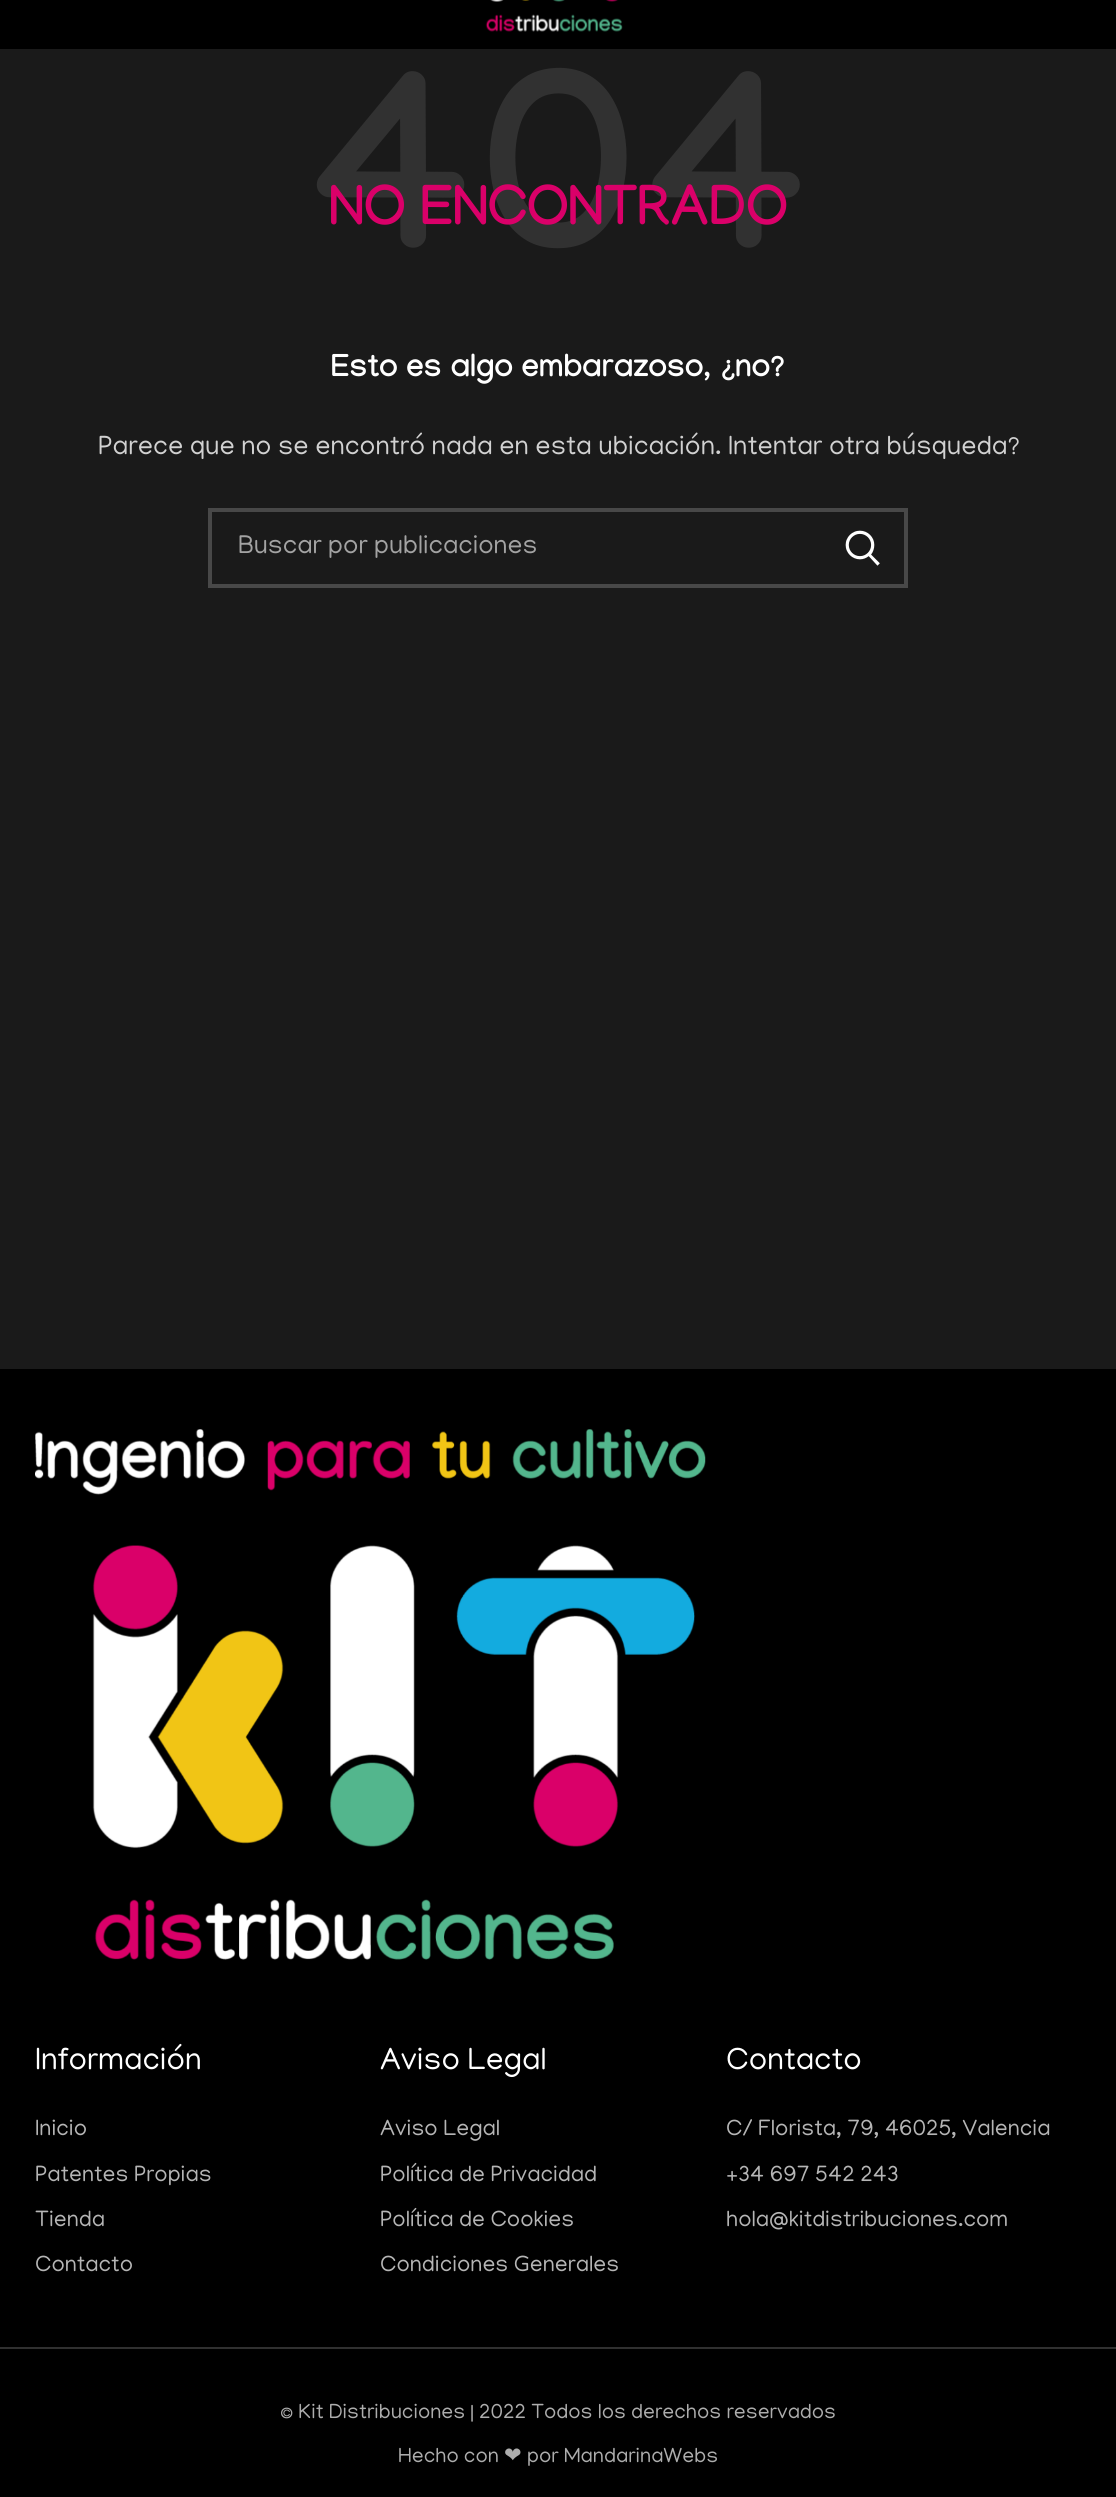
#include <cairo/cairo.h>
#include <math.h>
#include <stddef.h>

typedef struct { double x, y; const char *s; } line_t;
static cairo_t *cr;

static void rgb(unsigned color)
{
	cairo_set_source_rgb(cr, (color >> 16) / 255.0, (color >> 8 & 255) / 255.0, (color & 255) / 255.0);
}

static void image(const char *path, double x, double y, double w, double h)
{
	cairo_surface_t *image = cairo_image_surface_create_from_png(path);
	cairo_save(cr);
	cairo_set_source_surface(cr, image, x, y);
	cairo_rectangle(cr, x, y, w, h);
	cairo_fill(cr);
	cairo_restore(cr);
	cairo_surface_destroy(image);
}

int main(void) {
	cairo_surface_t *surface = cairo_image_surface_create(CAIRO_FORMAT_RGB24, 1116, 2497);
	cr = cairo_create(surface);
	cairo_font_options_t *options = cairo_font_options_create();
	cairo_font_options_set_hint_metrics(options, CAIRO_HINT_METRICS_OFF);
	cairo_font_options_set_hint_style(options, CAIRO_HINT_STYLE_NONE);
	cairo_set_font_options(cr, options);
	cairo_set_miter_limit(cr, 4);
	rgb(0x1a1a1a);
	cairo_paint(cr);
	rgb(0x000000);
	cairo_rectangle(cr, 0, 0, 1116, 49);
	cairo_fill(cr);
	image("img/1.png", 485, 0, 138, 32);
	cairo_rectangle(cr, 210, 510, 696, 76);
	rgb(0x484848);
	cairo_set_line_width(cr, 4);
	cairo_stroke(cr);
	image("img/2.png", 845, 530, 35, 36);
	rgb(0x000000);
	cairo_rectangle(cr, 0, 1369, 1116, 978);
	cairo_fill(cr);
	image("img/3.png", 35, 1429, 671, 531);
	cairo_rectangle(cr, 0, 2349, 1116, 148);
	cairo_fill(cr);
	rgb(0x303030);
	cairo_rectangle(cr, 0, 2347, 1116, 2);
	cairo_fill(cr);
	cairo_select_font_face(cr, "Manjari", CAIRO_FONT_SLANT_NORMAL, CAIRO_FONT_WEIGHT_BOLD);
	cairo_set_font_size(cr, 262);
	rgb(0x313131);
	cairo_move_to(cr, 304, 245);
	cairo_show_text(cr, "404");
	cairo_set_font_size(cr, 56);
	rgb(0xda0069);
	cairo_move_to(cr, 329, 224);
	cairo_show_text(cr, "NO ENCONTRADO");
	cairo_set_font_size(cr, 31.5);
	rgb(0xffffff);
	cairo_move_to(cr, 331, 376);
	cairo_show_text(cr, "Esto es algo embarazoso, ¿no?");
	cairo_select_font_face(cr, "Manjari", CAIRO_FONT_SLANT_NORMAL, CAIRO_FONT_WEIGHT_NORMAL);
	cairo_set_font_size(cr, 26.95);
	rgb(0xd1d1d1);
	cairo_move_to(cr, 98, 454);
	cairo_show_text(cr, "Parece que no se encontró nada en esta ubicación. Intentar otra búsqueda?");
	cairo_set_font_size(cr, 26.25);
	rgb(0xa3a3a3);
	cairo_move_to(cr, 238, 553);
	cairo_show_text(cr, "Buscar por publicaciones");
	cairo_set_font_size(cr, 31.5);
	rgb(0xffffff);
	cairo_move_to(cr, 35, 2069);
	cairo_show_text(cr, "Información");
	cairo_set_font_size(cr, 22.75);
	rgb(0xb5b5b5);
	{
		static const line_t items[] = {
			{35, 2135, "Inicio"},
			{35, 2181, "Patentes Propias"},
			{35, 2226, "Tienda"},
			{35, 2271, "Contacto"},
		};
		for (size_t i = 0; i < sizeof items / sizeof *items; i++) {
			cairo_move_to(cr, items[i].x, items[i].y);
			cairo_show_text(cr, items[i].s);
		}
	}
	cairo_set_font_size(cr, 31.5);
	rgb(0xffffff);
	cairo_move_to(cr, 380, 2069);
	cairo_show_text(cr, "Aviso Legal");
	cairo_set_font_size(cr, 22.75);
	rgb(0xb5b5b5);
	{
		static const line_t items[] = {
			{380, 2135, "Aviso Legal"},
			{380, 2181, "Política de Privacidad"},
			{380, 2226, "Política de Cookies"},
			{380, 2271, "Condiciones Generales"},
		};
		for (size_t i = 0; i < sizeof items / sizeof *items; i++) {
			cairo_move_to(cr, items[i].x, items[i].y);
			cairo_show_text(cr, items[i].s);
		}
	}
	cairo_set_font_size(cr, 31.5);
	rgb(0xffffff);
	cairo_move_to(cr, 726, 2069);
	cairo_show_text(cr, "Contacto");
	cairo_set_font_size(cr, 22.75);
	rgb(0xb5b5b5);
	{
		static const line_t items[] = {
			{726, 2135, "C/ Florista, 79, 46025, Valencia"},
			{726, 2181, "+34 697 542 243"},
			{726, 2226, "hola@kitdistribuciones.com"},
		};
		for (size_t i = 0; i < sizeof items / sizeof *items; i++) {
			cairo_move_to(cr, items[i].x, items[i].y);
			cairo_show_text(cr, items[i].s);
		}
	}
	cairo_set_font_size(cr, 21);
	rgb(0xadadad);
	cairo_move_to(cr, 280, 2418);
	cairo_show_text(cr, "© Kit Distribuciones | 2022 Todos los derechos reservados");
	cairo_move_to(cr, 398, 2462);
	cairo_show_text(cr, "Hecho con");
	cairo_select_font_face(cr, "DejaVu Sans", CAIRO_FONT_SLANT_NORMAL, CAIRO_FONT_WEIGHT_NORMAL);
	cairo_move_to(cr, 504, 2462);
	cairo_show_text(cr, "❤");
	cairo_select_font_face(cr, "Manjari", CAIRO_FONT_SLANT_NORMAL, CAIRO_FONT_WEIGHT_NORMAL);
	cairo_move_to(cr, 527, 2462);
	cairo_show_text(cr, "por MandarinaWebs");
	cairo_surface_write_to_png(surface, "page.png");
	cairo_font_options_destroy(options);
	cairo_destroy(cr);
	cairo_surface_destroy(surface);
	return 0;
}
